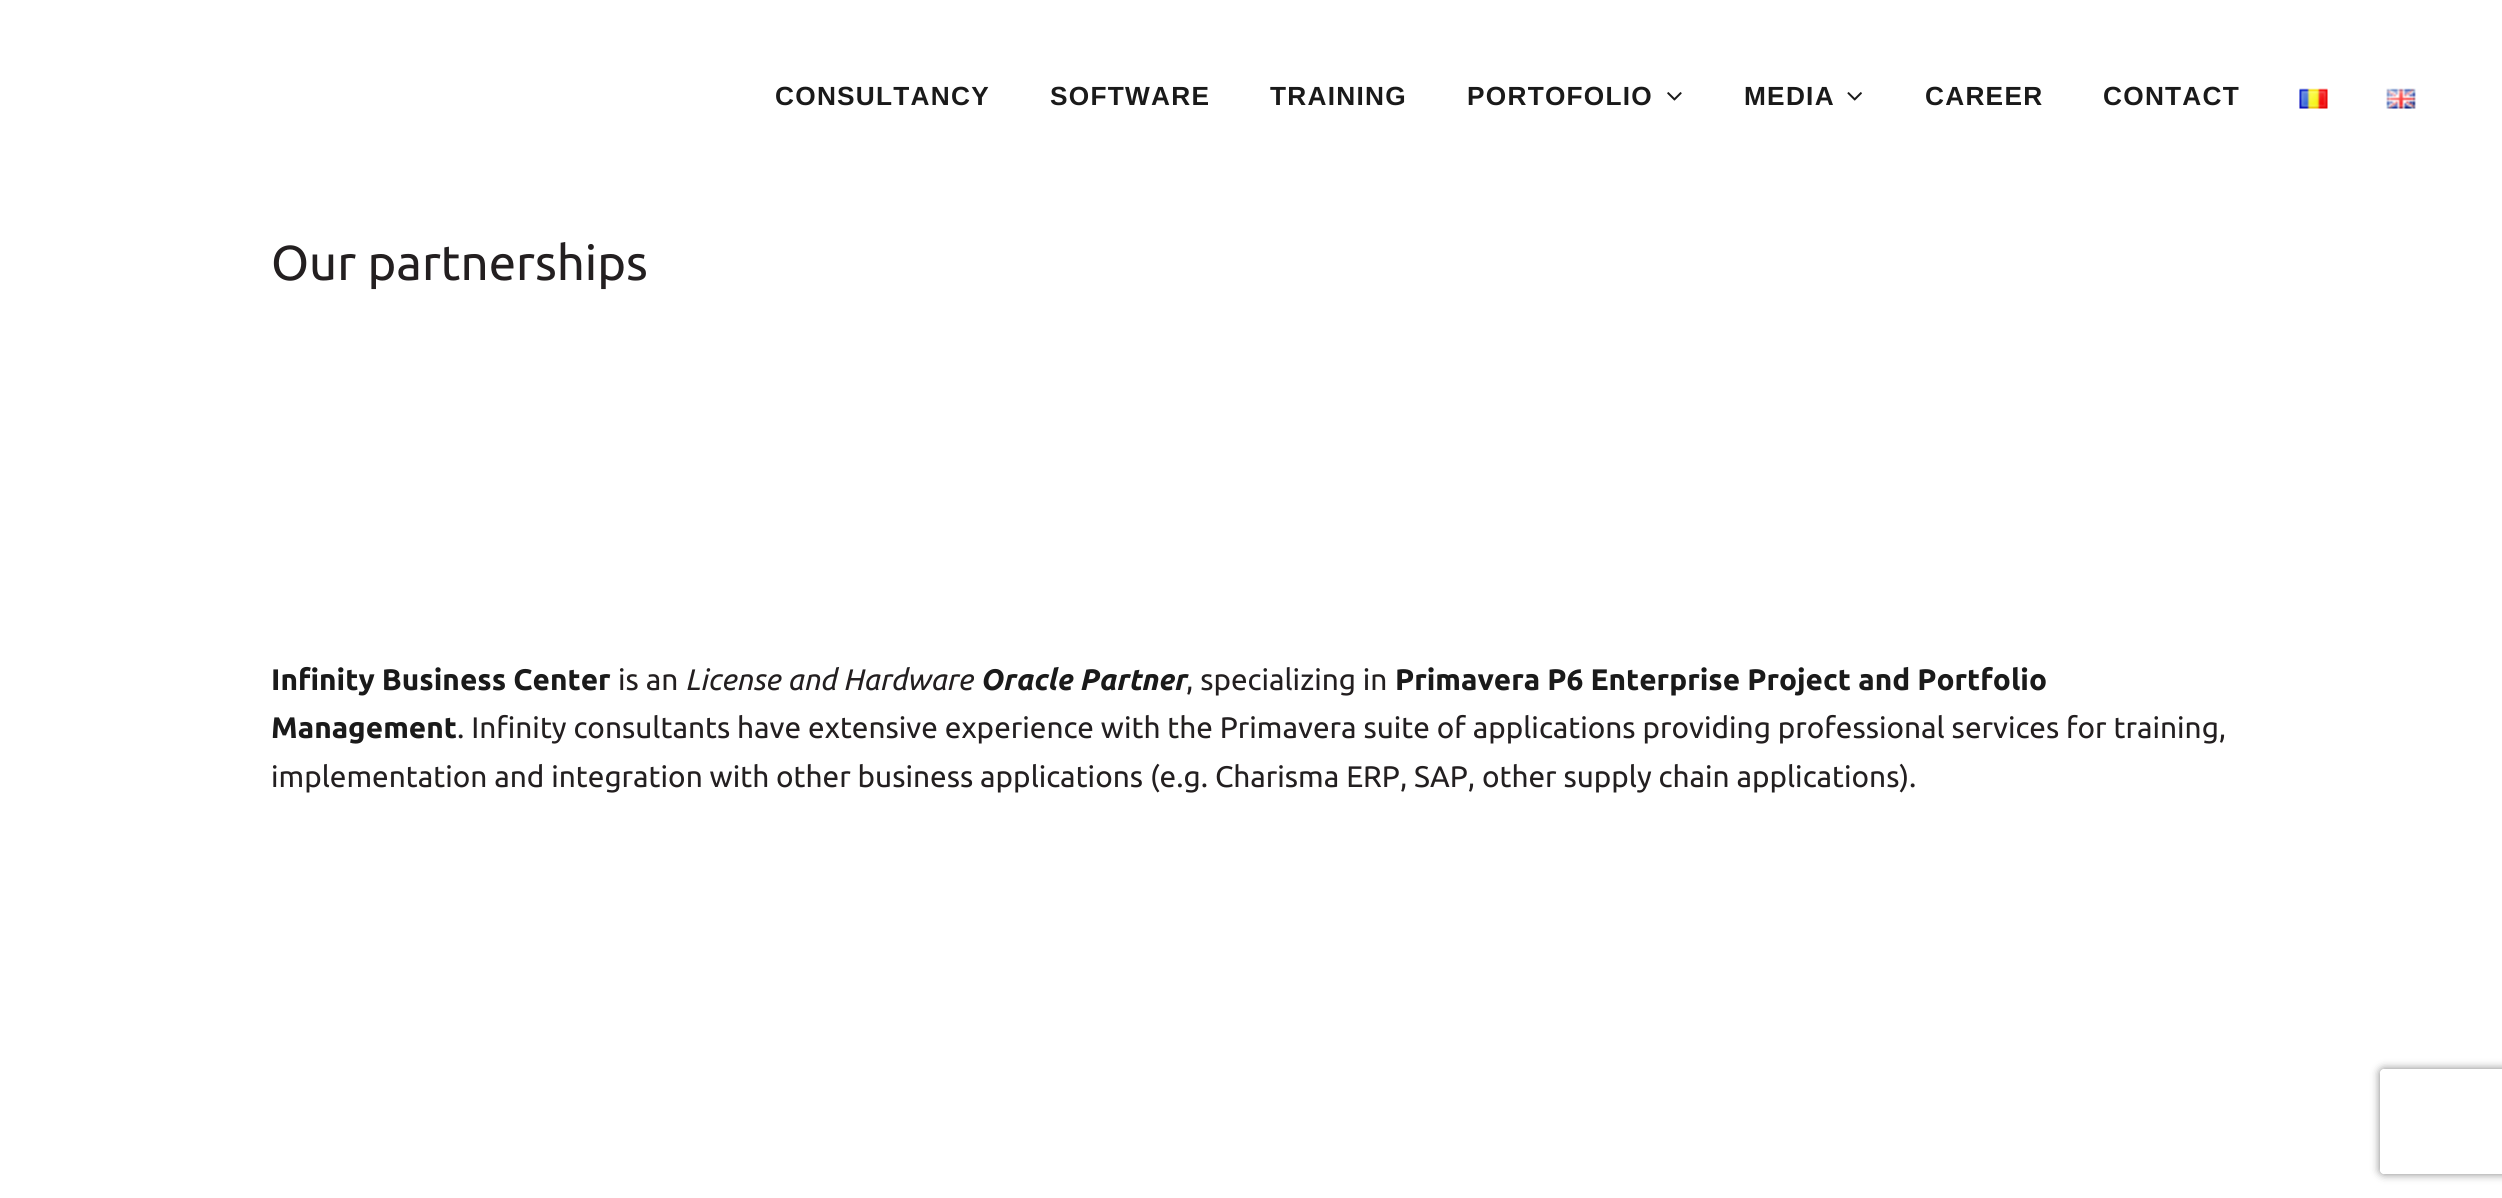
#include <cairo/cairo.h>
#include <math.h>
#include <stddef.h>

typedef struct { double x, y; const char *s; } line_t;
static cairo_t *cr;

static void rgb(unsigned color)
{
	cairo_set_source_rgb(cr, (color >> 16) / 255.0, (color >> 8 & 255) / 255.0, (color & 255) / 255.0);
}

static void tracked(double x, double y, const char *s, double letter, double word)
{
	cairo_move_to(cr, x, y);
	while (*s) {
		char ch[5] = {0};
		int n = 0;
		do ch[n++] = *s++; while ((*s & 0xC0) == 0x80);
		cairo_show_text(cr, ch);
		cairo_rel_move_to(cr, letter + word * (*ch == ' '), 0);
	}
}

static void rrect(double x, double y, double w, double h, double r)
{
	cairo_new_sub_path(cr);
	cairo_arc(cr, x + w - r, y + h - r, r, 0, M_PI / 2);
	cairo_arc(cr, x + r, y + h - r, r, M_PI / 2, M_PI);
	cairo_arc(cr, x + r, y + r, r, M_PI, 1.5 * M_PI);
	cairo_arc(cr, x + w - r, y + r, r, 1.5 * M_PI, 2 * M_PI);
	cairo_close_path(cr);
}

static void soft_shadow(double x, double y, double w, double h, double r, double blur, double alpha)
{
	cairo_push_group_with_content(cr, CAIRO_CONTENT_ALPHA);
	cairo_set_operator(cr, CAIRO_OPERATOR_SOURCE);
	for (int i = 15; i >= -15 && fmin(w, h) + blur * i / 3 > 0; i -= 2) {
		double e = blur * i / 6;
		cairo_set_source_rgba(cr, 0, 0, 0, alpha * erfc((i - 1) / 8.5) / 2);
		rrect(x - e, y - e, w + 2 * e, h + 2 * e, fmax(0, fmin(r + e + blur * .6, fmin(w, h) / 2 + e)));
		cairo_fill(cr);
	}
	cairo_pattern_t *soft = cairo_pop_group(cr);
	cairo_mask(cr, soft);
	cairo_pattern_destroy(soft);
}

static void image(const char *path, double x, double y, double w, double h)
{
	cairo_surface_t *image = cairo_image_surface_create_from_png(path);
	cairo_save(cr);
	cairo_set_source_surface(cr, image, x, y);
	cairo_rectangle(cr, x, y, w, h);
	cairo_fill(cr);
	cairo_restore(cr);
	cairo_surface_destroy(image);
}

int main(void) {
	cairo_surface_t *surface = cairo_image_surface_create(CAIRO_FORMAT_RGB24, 2502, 1198);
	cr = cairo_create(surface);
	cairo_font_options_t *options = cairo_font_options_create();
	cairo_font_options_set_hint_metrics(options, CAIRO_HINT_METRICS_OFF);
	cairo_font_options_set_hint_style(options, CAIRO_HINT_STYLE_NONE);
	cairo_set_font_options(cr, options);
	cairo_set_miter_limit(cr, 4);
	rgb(0xffffff);
	cairo_paint(cr);
	image("img/1.png", 1667, 92, 15, 9);
	image("img/2.png", 1847, 92, 15, 9);
	image("img/3.png", 2299, 88, 29, 21);
	image("img/4.png", 2386, 88, 30, 21);
	cairo_save(cr);
	cairo_set_fill_rule(cr, CAIRO_FILL_RULE_EVEN_ODD);
	cairo_new_path(cr);
	cairo_move_to(cr, 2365, 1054);
	cairo_line_to(cr, 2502, 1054);
	cairo_line_to(cr, 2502, 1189);
	cairo_line_to(cr, 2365, 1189);
	cairo_close_path(cr);
	cairo_move_to(cr, 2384, 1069);
	cairo_line_to(cr, 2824, 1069);
	cairo_curve_to(cr, 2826, 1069, 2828, 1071, 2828, 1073);
	cairo_line_to(cr, 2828, 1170);
	cairo_curve_to(cr, 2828, 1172, 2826, 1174, 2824, 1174);
	cairo_line_to(cr, 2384, 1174);
	cairo_curve_to(cr, 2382, 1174, 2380, 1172, 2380, 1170);
	cairo_line_to(cr, 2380, 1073);
	cairo_curve_to(cr, 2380, 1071, 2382, 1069, 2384, 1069);
	cairo_close_path(cr);
	cairo_clip(cr);
	rgb(0x808080);
	soft_shadow(2380, 1069, 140, 105, 4, 4.5, 1);
	cairo_restore(cr);
	cairo_select_font_face(cr, "Liberation Sans", CAIRO_FONT_SLANT_NORMAL, CAIRO_FONT_WEIGHT_BOLD);
	cairo_set_font_size(cr, 26.25);
	rgb(0x1a1a1a);
	{
		static const line_t items[] = {
			{775, 105, "CONSULTANCY"},
			{1050, 105, "SOFTWARE"},
			{1270, 105, "TRAINING"},
			{1467, 105, "PORTOFOLIO"},
			{1744, 105, "MEDIA"},
			{1925, 105, "CAREER"},
			{2103, 105, "CONTACT"},
		};
		for (size_t i = 0; i < sizeof items / sizeof *items; i++) {
			tracked(items[i].x, items[i].y, items[i].s, 1.25, 0);
		}
	}
	cairo_select_font_face(cr, "Ubuntu", CAIRO_FONT_SLANT_NORMAL, CAIRO_FONT_WEIGHT_NORMAL);
	cairo_set_font_size(cr, 49);
	rgb(0x231f20);
	cairo_move_to(cr, 271, 280);
	cairo_show_text(cr, "Our partnerships");
	cairo_select_font_face(cr, "Ubuntu", CAIRO_FONT_SLANT_NORMAL, CAIRO_FONT_WEIGHT_BOLD);
	cairo_set_font_size(cr, 29.75);
	rgb(0x1a1a1a);
	cairo_move_to(cr, 271, 690);
	cairo_show_text(cr, "Infinity Business Center");
	cairo_select_font_face(cr, "Ubuntu", CAIRO_FONT_SLANT_NORMAL, CAIRO_FONT_WEIGHT_NORMAL);
	rgb(0x231f20);
	cairo_move_to(cr, 618, 690);
	cairo_show_text(cr, "is an");
	cairo_select_font_face(cr, "Ubuntu", CAIRO_FONT_SLANT_ITALIC, CAIRO_FONT_WEIGHT_NORMAL);
	cairo_move_to(cr, 685, 690);
	cairo_show_text(cr, "License and Hardware");
	cairo_select_font_face(cr, "Ubuntu", CAIRO_FONT_SLANT_ITALIC, CAIRO_FONT_WEIGHT_BOLD);
	rgb(0x1a1a1a);
	cairo_move_to(cr, 980, 690);
	cairo_show_text(cr, "Oracle Partner");
	cairo_select_font_face(cr, "Ubuntu", CAIRO_FONT_SLANT_NORMAL, CAIRO_FONT_WEIGHT_NORMAL);
	rgb(0x231f20);
	cairo_move_to(cr, 1186, 690);
	cairo_show_text(cr, ", specializing in");
	cairo_select_font_face(cr, "Ubuntu", CAIRO_FONT_SLANT_NORMAL, CAIRO_FONT_WEIGHT_BOLD);
	rgb(0x1a1a1a);
	cairo_move_to(cr, 1395, 690);
	cairo_show_text(cr, "Primavera P6 Enterprise Project and Portfolio");
	cairo_move_to(cr, 271, 738);
	cairo_show_text(cr, "Management");
	cairo_select_font_face(cr, "Ubuntu", CAIRO_FONT_SLANT_NORMAL, CAIRO_FONT_WEIGHT_NORMAL);
	rgb(0x231f20);
	cairo_move_to(cr, 457, 738);
	cairo_show_text(cr, ". Infinity consultants have extensive experience with the Primavera suite of applications providing professional services for training,");
	cairo_move_to(cr, 271, 787);
	cairo_show_text(cr, "implementation and integration with other business applications (e.g. Charisma ERP, SAP, other supply chain applications).");
	cairo_surface_write_to_png(surface, "page.png");
	cairo_font_options_destroy(options);
	cairo_destroy(cr);
	cairo_surface_destroy(surface);
	return 0;
}
